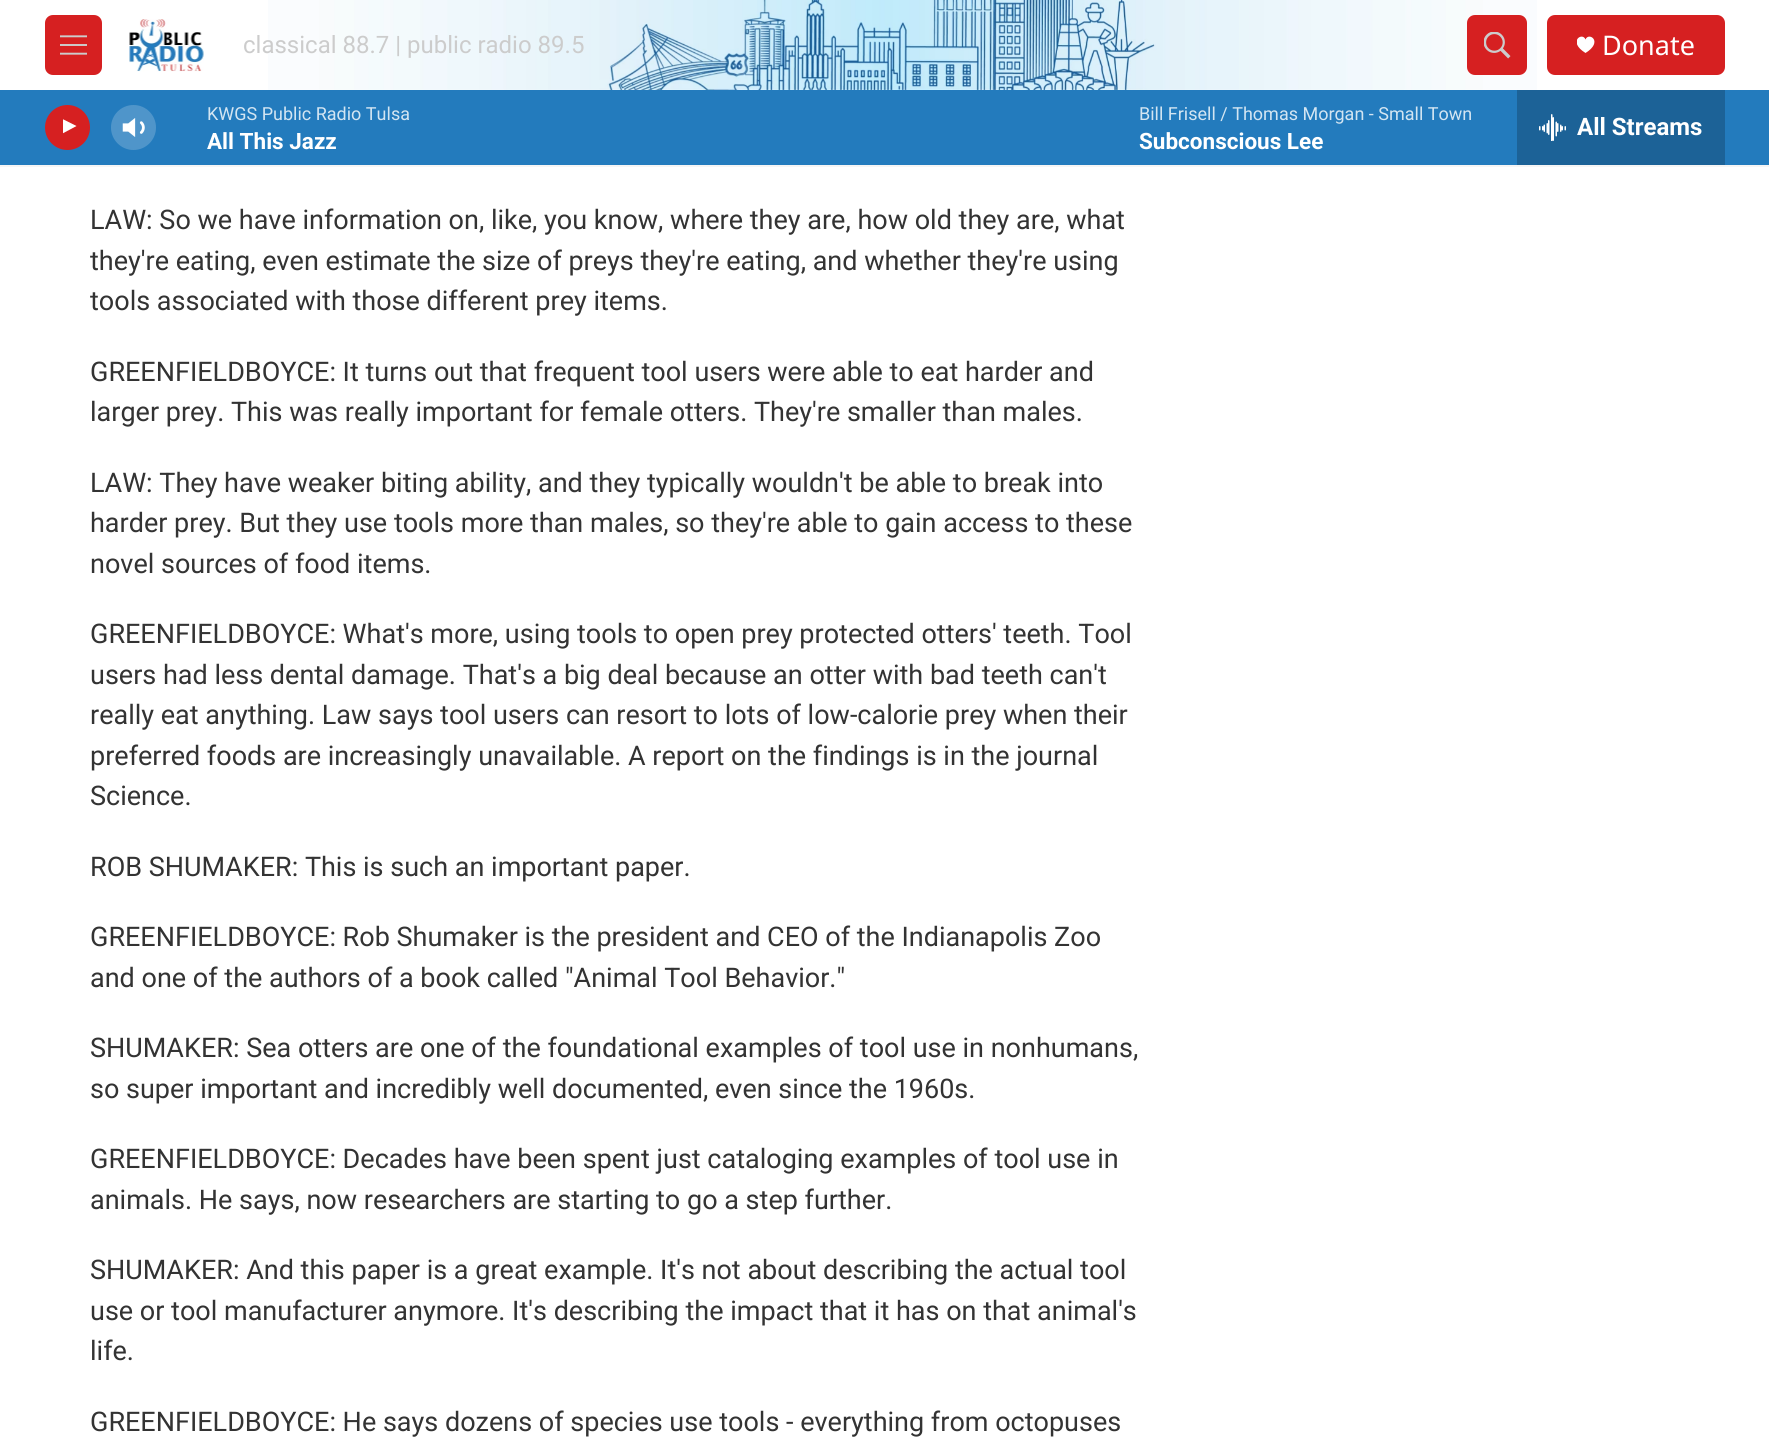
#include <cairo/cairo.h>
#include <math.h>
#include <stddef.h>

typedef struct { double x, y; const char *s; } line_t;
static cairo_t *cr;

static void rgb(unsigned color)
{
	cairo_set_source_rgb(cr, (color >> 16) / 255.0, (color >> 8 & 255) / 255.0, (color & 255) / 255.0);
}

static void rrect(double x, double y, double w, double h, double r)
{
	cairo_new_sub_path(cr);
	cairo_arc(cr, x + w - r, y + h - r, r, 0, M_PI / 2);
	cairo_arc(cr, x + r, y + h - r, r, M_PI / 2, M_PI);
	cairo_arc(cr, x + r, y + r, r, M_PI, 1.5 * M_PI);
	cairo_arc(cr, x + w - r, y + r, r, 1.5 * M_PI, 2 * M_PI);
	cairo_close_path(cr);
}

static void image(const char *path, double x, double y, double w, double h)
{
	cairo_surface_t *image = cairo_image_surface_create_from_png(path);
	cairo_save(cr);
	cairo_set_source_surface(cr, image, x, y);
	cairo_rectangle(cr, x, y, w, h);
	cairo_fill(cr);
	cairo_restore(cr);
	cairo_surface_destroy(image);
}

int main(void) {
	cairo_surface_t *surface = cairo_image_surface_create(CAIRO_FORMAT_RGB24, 1769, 1450);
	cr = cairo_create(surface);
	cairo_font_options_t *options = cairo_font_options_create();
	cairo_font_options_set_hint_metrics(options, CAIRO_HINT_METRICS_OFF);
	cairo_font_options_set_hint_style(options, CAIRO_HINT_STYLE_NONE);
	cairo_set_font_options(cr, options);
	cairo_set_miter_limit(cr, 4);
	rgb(0xffffff);
	cairo_paint(cr);
	rgb(0xf5f5f5);
	cairo_rectangle(cr, 0, 165, 1769, 2);
	cairo_fill(cr);
	image("img/1.png", 268, 0, 1269, 90);
	rgb(0xd62021);
	rrect(45, 15, 57, 60, 8);
	cairo_fill(cr);
	image("img/2.png", 60, 35, 27, 20);
	image("img/3.png", 129, 19, 75, 53);
	rrect(1467, 15, 60, 60, 8);
	cairo_fill(cr);
	image("img/4.png", 1484, 32, 27, 27);
	rrect(1547, 15, 178, 60, 8);
	cairo_fill(cr);
	cairo_save(cr);
	cairo_rectangle(cr, 1577, 36, 18, 18);
	cairo_clip(cr);
	rgb(0xffffff);
	cairo_new_path(cr);
	cairo_move_to(cr, 1585.5, 39.5);
	cairo_curve_to(cr, 1582.5, 31.5, 1567, 41.5, 1585.5, 53);
	cairo_curve_to(cr, 1604, 41.5, 1588.5, 31.5, 1585.5, 39.5);
	cairo_close_path(cr);
	cairo_fill(cr);
	cairo_restore(cr);
	rgb(0x237bbd);
	cairo_rectangle(cr, 0, 90, 1769, 75);
	cairo_fill(cr);
	rgb(0xd62021);
	cairo_arc(cr, 67.5, 127.5, 22.5, 0, 2 * M_PI);
	cairo_fill(cr);
	cairo_save(cr);
	cairo_rectangle(cr, 63, 117, 17, 23);
	cairo_clip(cr);
	rgb(0xffffff);
	cairo_new_path(cr);
	cairo_move_to(cr, 62.5, 119);
	cairo_line_to(cr, 76.5, 126);
	cairo_line_to(cr, 62.5, 133.5);
	cairo_close_path(cr);
	cairo_fill(cr);
	cairo_restore(cr);
	image("img/5.png", 122, 118, 23, 19);
	cairo_set_source_rgba(cr, 1, 1, 1, 0.2);
	cairo_arc(cr, 133.5, 127.5, 22.5, 0, 2 * M_PI);
	cairo_fill(cr);
	rgb(0x1c6297);
	cairo_rectangle(cr, 1517, 90, 208, 75);
	cairo_fill(cr);
	image("img/6.png", 1539, 114, 27, 27);
	cairo_select_font_face(cr, "Roboto", CAIRO_FONT_SLANT_NORMAL, CAIRO_FONT_WEIGHT_NORMAL);
	cairo_set_font_size(cr, 24);
	rgb(0xcccccc);
	cairo_move_to(cr, 243, 53);
	cairo_show_text(cr, "classical 88.7 | public radio 89.5");
	cairo_select_font_face(cr, "Noto Sans", CAIRO_FONT_SLANT_NORMAL, CAIRO_FONT_WEIGHT_NORMAL);
	cairo_set_font_size(cr, 27);
	rgb(0xffffff);
	cairo_move_to(cr, 1602, 55);
	cairo_show_text(cr, "Donate");
	cairo_select_font_face(cr, "Roboto", CAIRO_FONT_SLANT_NORMAL, CAIRO_FONT_WEIGHT_NORMAL);
	cairo_set_font_size(cr, 18);
	rgb(0xd3e5f2);
	cairo_move_to(cr, 207, 120);
	cairo_show_text(cr, "KWGS Public Radio Tulsa");
	cairo_select_font_face(cr, "Roboto", CAIRO_FONT_SLANT_NORMAL, CAIRO_FONT_WEIGHT_BOLD);
	cairo_set_font_size(cr, 22.5);
	rgb(0xffffff);
	cairo_move_to(cr, 207, 149);
	cairo_show_text(cr, "All This Jazz");
	cairo_select_font_face(cr, "Roboto", CAIRO_FONT_SLANT_NORMAL, CAIRO_FONT_WEIGHT_NORMAL);
	cairo_set_font_size(cr, 18);
	rgb(0xd3e5f2);
	cairo_move_to(cr, 1139, 120);
	cairo_show_text(cr, "Bill Frisell / Thomas Morgan - Small Town");
	cairo_select_font_face(cr, "Roboto", CAIRO_FONT_SLANT_NORMAL, CAIRO_FONT_WEIGHT_BOLD);
	cairo_set_font_size(cr, 22.5);
	rgb(0xffffff);
	cairo_move_to(cr, 1139, 149);
	cairo_show_text(cr, "Subconscious Lee");
	cairo_set_font_size(cr, 24);
	cairo_move_to(cr, 1577, 135);
	cairo_show_text(cr, "All Streams");
	cairo_select_font_face(cr, "Roboto", CAIRO_FONT_SLANT_NORMAL, CAIRO_FONT_WEIGHT_NORMAL);
	cairo_set_font_size(cr, 27);
	rgb(0x333333);
	{
		static const line_t items[] = {
			{90, 229, "LAW: So we have information on, like, you know, where they are, how old they are, what"},
			{90, 270, "they're eating, even estimate the size of preys they're eating, and whether they're using"},
			{90, 310, "tools associated with those different prey items."},
			{90, 381, "GREENFIELDBOYCE: It turns out that frequent tool users were able to eat harder and"},
			{90, 421, "larger prey. This was really important for female otters. They're smaller than males."},
			{90, 492, "LAW: They have weaker biting ability, and they typically wouldn't be able to break into"},
			{90, 532, "harder prey. But they use tools more than males, so they're able to gain access to these"},
			{90, 573, "novel sources of food items."},
			{90, 643, "GREENFIELDBOYCE: What's more, using tools to open prey protected otters' teeth. Tool"},
			{90, 684, "users had less dental damage. That's a big deal because an otter with bad teeth can't"},
			{90, 724, "really eat anything. Law says tool users can resort to lots of low-calorie prey when their"},
			{90, 765, "preferred foods are increasingly unavailable. A report on the findings is in the journal"},
			{90, 805, "Science."},
			{90, 876, "ROB SHUMAKER: This is such an important paper."},
			{90, 946, "GREENFIELDBOYCE: Rob Shumaker is the president and CEO of the Indianapolis Zoo"},
			{90, 987, "and one of the authors of a book called \"Animal Tool Behavior.\""},
			{90, 1057, "SHUMAKER: Sea otters are one of the foundational examples of tool use in nonhumans,"},
			{90, 1098, "so super important and incredibly well documented, even since the 1960s."},
			{90, 1168, "GREENFIELDBOYCE: Decades have been spent just cataloging examples of tool use in"},
			{90, 1209, "animals. He says, now researchers are starting to go a step further."},
			{90, 1279, "SHUMAKER: And this paper is a great example. It's not about describing the actual tool"},
			{90, 1320, "use or tool manufacturer anymore. It's describing the impact that it has on that animal's"},
			{90, 1360, "life."},
			{90, 1431, "GREENFIELDBOYCE: He says dozens of species use tools - everything from octopuses"},
		};
		for (size_t i = 0; i < sizeof items / sizeof *items; i++) {
			cairo_move_to(cr, items[i].x, items[i].y);
			cairo_show_text(cr, items[i].s);
		}
	}
	cairo_surface_write_to_png(surface, "page.png");
	cairo_font_options_destroy(options);
	cairo_destroy(cr);
	cairo_surface_destroy(surface);
	return 0;
}
